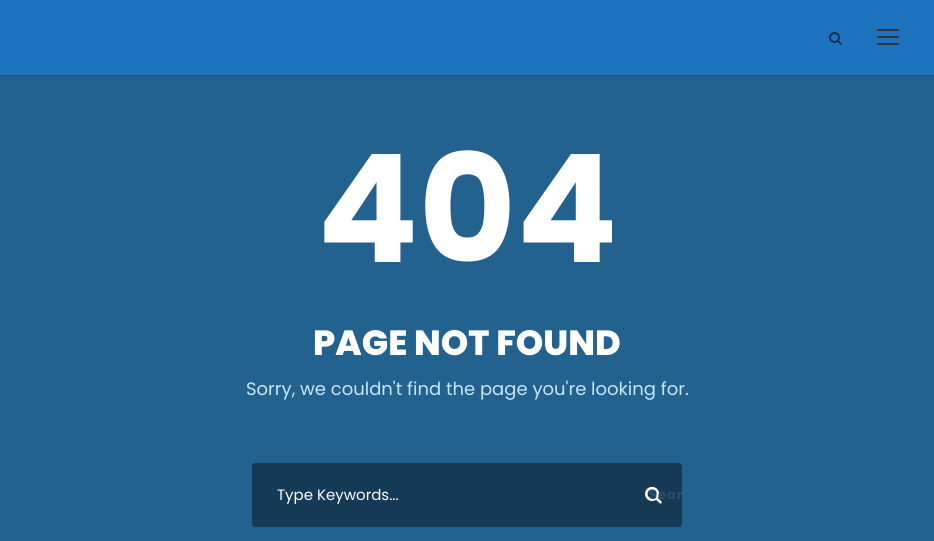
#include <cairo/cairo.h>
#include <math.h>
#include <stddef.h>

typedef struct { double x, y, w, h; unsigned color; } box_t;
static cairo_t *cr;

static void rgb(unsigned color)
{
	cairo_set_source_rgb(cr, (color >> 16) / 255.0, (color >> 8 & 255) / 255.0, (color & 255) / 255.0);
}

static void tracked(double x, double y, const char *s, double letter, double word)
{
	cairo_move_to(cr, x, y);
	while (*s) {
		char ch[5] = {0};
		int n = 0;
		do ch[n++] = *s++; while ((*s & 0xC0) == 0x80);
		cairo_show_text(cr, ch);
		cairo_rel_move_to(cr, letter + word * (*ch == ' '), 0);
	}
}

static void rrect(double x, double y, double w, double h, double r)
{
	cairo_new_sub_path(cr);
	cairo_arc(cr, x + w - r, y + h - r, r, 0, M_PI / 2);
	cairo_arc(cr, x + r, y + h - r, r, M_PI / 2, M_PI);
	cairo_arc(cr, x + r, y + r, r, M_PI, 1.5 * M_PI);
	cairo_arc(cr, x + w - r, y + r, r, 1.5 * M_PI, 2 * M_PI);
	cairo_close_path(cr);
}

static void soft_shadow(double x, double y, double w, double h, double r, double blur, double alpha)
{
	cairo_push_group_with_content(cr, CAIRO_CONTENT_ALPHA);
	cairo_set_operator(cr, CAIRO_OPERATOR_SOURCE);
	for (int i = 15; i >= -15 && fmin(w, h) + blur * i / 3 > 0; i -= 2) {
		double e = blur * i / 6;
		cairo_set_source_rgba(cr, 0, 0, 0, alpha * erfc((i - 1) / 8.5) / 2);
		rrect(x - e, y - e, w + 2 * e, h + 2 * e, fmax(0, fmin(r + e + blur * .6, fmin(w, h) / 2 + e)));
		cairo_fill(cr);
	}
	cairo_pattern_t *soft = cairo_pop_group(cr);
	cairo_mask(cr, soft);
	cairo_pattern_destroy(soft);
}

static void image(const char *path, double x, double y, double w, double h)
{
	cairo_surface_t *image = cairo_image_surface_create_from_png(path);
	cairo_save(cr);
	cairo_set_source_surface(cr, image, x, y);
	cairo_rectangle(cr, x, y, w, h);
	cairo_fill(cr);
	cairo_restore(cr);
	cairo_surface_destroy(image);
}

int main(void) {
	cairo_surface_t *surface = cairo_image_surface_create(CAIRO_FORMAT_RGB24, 934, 541);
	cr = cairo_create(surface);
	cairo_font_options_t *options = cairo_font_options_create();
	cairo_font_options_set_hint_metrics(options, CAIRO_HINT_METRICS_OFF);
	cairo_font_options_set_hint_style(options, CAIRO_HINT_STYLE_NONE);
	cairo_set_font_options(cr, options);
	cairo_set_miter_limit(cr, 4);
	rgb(0x23618e);
	cairo_paint(cr);
	rgb(0x000000);
	soft_shadow(0, 1, 934, 75, 0, 1, 0.1);
	rgb(0x1e73be);
	cairo_rectangle(cr, 0, 0, 934, 75);
	cairo_fill(cr);
	image("img/1.png", 829, 32, 13, 13);
	{
		static const box_t items[] = {
			{877, 29, 22, 2, 0x333333},
			{877, 36, 22, 2, 0x333333},
			{877, 43, 22, 2, 0x333333},
		};
		for (size_t i = 0; i < sizeof items / sizeof *items; i++) {
			rgb(items[i].color);
			cairo_rectangle(cr, items[i].x, items[i].y, items[i].w, items[i].h);
			cairo_fill(cr);
		}
	}
	rgb(0x153a55);
	rrect(252, 463, 430, 64, 3);
	cairo_fill(cr);
	image("img/2.png", 645, 486, 17, 18);
	cairo_select_font_face(cr, "Poppins", CAIRO_FONT_SLANT_NORMAL, CAIRO_FONT_WEIGHT_BOLD);
	cairo_set_font_size(cr, 150);
	rgb(0xffffff);
	cairo_move_to(cr, 317, 262);
	cairo_show_text(cr, "404");
	cairo_select_font_face(cr, "Poppins ExtraBold", CAIRO_FONT_SLANT_NORMAL, CAIRO_FONT_WEIGHT_NORMAL);
	cairo_set_font_size(cr, 35);
	cairo_move_to(cr, 313, 355);
	cairo_show_text(cr, "PAGE NOT FOUND");
	cairo_select_font_face(cr, "Poppins", CAIRO_FONT_SLANT_NORMAL, CAIRO_FONT_WEIGHT_NORMAL);
	cairo_set_font_size(cr, 18);
	rgb(0xc3e7ff);
	cairo_move_to(cr, 246, 395);
	cairo_show_text(cr, "Sorry, we couldn't find the page you're looking for.");
	cairo_set_font_size(cr, 15);
	rgb(0xffffff);
	cairo_move_to(cr, 277, 500);
	cairo_show_text(cr, "Type Keywords...");
	cairo_select_font_face(cr, "Poppins", CAIRO_FONT_SLANT_NORMAL, CAIRO_FONT_WEIGHT_BOLD);
	cairo_set_font_size(cr, 13);
	rgb(0x2d4e66);
	tracked(649, 499, "Sear", 1, 0);
	cairo_surface_write_to_png(surface, "page.png");
	cairo_font_options_destroy(options);
	cairo_destroy(cr);
	cairo_surface_destroy(surface);
	return 0;
}
